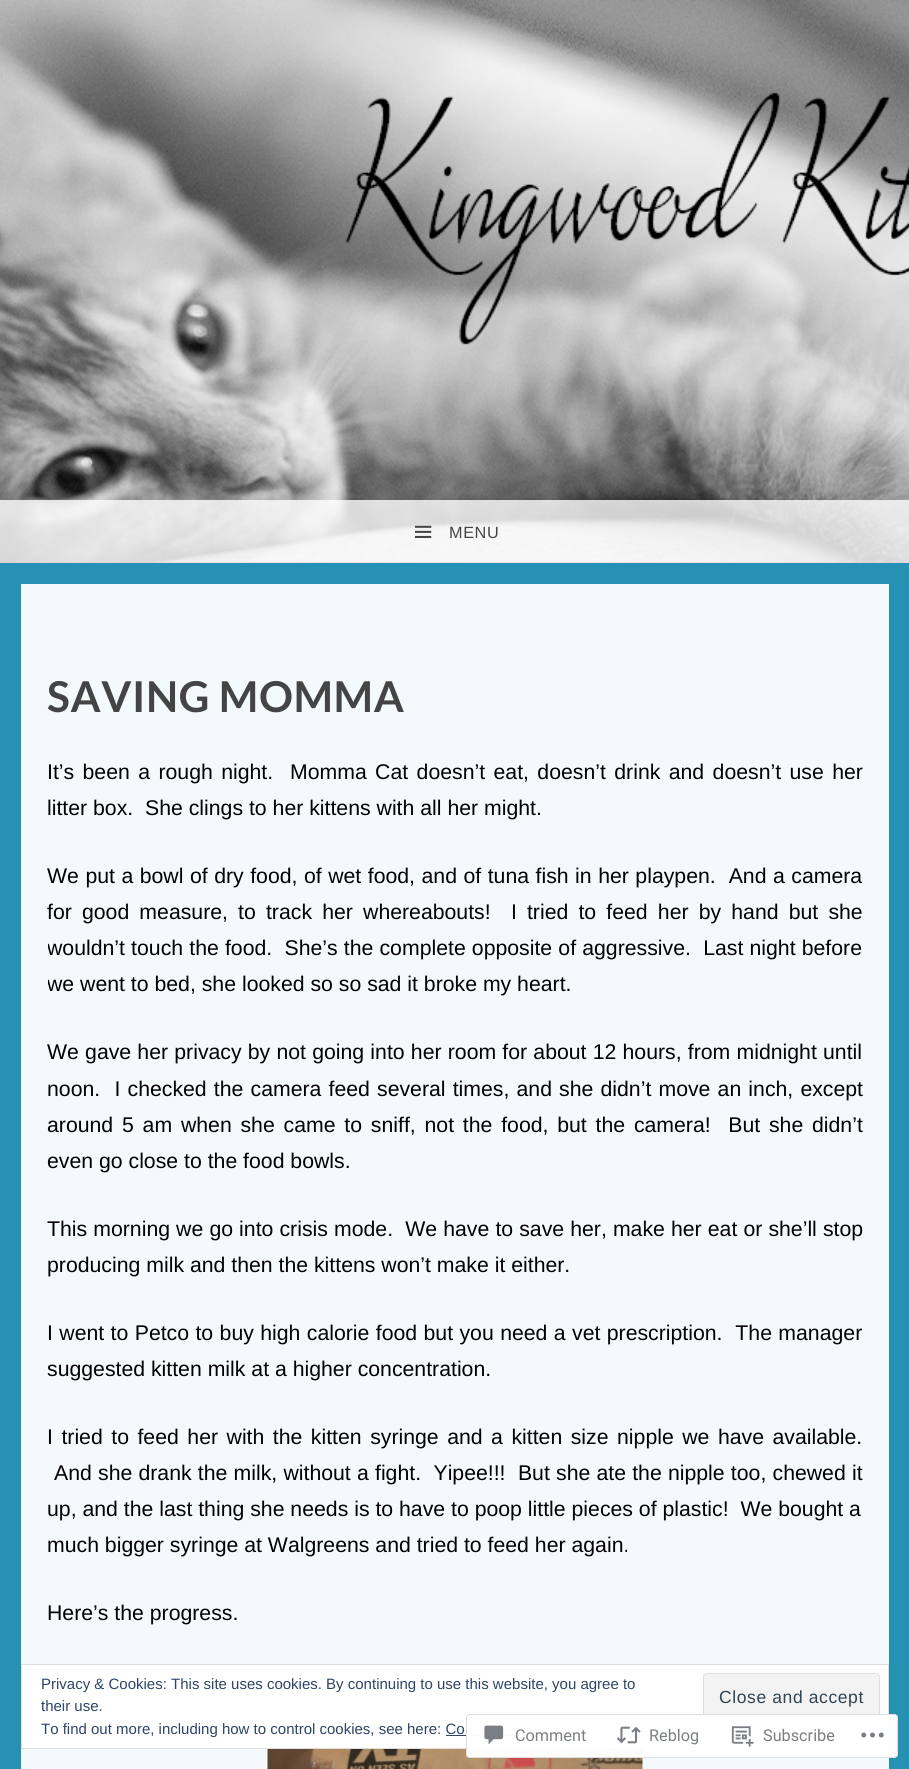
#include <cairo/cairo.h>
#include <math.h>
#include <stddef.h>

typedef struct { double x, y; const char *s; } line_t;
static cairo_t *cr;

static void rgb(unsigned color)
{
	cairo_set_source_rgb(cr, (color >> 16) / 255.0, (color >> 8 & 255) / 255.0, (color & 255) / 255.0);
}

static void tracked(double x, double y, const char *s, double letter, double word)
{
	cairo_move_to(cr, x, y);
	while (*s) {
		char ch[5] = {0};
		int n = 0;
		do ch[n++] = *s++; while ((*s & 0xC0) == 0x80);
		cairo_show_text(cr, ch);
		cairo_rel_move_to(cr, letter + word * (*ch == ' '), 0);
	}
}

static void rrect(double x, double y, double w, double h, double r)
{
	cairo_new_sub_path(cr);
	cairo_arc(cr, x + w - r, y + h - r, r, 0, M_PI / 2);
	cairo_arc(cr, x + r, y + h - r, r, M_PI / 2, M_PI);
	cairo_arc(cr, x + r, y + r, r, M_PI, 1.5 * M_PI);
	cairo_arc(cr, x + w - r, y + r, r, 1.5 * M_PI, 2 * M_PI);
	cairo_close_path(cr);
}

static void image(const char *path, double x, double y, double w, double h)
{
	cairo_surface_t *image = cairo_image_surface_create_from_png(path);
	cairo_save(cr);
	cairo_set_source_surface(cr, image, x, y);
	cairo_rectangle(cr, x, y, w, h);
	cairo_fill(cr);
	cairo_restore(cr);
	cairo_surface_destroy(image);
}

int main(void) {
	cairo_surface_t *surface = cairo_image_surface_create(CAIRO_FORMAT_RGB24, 909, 1769);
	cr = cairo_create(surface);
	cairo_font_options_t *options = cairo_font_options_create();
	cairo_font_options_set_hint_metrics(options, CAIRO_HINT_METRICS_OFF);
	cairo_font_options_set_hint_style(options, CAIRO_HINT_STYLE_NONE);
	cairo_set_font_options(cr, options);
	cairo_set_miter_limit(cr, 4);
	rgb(0x2791b3);
	cairo_paint(cr);
	rgb(0x333333);
	cairo_rectangle(cr, 0, 562, 909, 1);
	cairo_fill(cr);
	image("img/1.png", 0, 0, 909, 563);
	cairo_set_source_rgba(cr, 1, 1, 1, 0.8);
	cairo_rectangle(cr, 0, 500, 909, 63);
	cairo_fill(cr);
	image("img/2.png", 415, 525, 17, 13);
	rgb(0xf4f9fb);
	cairo_rectangle(cr, 21, 584, 868, 1185);
	cairo_fill(cr);
	image("img/3.png", 267, 1749, 376, 20);
	rgb(0xffffff);
	cairo_rectangle(cr, 21.5, 1664.5, 867, 84);
	cairo_fill_preserve(cr);
	rgb(0xdedede);
	cairo_set_line_width(cr, 1);
	cairo_stroke(cr);
	rgb(0xf3f3f3);
	rrect(703.5, 1673.5, 176, 47, 3.5);
	cairo_fill_preserve(cr);
	rgb(0xdedede);
	cairo_stroke(cr);
	rgb(0x2e4467);
	cairo_rectangle(cr, 446, 1735, 90, 1);
	cairo_fill(cr);
	cairo_set_source_rgba(cr, 1, 1, 1, 0.98);
	rrect(466, 1714, 432, 44, 4);
	cairo_fill(cr);
	rrect(466.5, 1714.5, 431, 43, 3.5);
	cairo_set_source_rgba(cr, 0.863, 0.863, 0.871, 0.98);
	cairo_stroke(cr);
	image("img/4.png", 484, 1725, 20, 20);
	image("img/5.png", 616, 1726, 25, 18);
	image("img/6.png", 731, 1726, 23, 21);
	image("img/7.png", 861, 1732, 23, 6);
	cairo_select_font_face(cr, "Liberation Sans", CAIRO_FONT_SLANT_NORMAL, CAIRO_FONT_WEIGHT_NORMAL);
	cairo_set_font_size(cr, 16.25);
	rgb(0x444444);
	tracked(449, 538, "MENU", 0.6, 0);
	cairo_select_font_face(cr, "Lato", CAIRO_FONT_SLANT_NORMAL, CAIRO_FONT_WEIGHT_BOLD);
	cairo_set_font_size(cr, 42.5);
	tracked(47, 712, "SAVING MOMMA", 0.6, 0);
	cairo_select_font_face(cr, "Liberation Sans", CAIRO_FONT_SLANT_NORMAL, CAIRO_FONT_WEIGHT_NORMAL);
	cairo_set_font_size(cr, 21.25);
	rgb(0x000000);
	tracked(47, 779, "It’s been a rough night.  Momma Cat doesn’t eat, doesn’t drink and doesn’t use her", 0, 2.5);
	cairo_move_to(cr, 47, 815);
	cairo_show_text(cr, "litter box.  She clings to her kittens with all her might.");
	tracked(47, 883, "We put a bowl of dry food, of wet food, and of tuna fish in her playpen.  And a camera", 0, 0.6);
	tracked(47, 919, "for good measure, to track her whereabouts!  I tried to feed her by hand but she", 0, 4.25);
	cairo_save(cr);
	cairo_rectangle(cr, 48, 755, 815, 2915);
	cairo_clip(cr);
	tracked(47, 955, "wouldn’t touch the food.  She’s the complete opposite of aggressive.  Last night before", 0, 0.25);
	cairo_move_to(cr, 47, 991);
	cairo_show_text(cr, "we went to bed, she looked so so sad it broke my heart.");
	cairo_restore(cr);
	tracked(47, 1059, "We gave her privacy by not going into her room for about 12 hours, from midnight until", 0, 0.3);
	tracked(47, 1096, "noon.  I checked the camera feed several times, and she didn’t move an inch, except", 0, 1.25);
	tracked(47, 1132, "around 5 am when she came to sniff, not the food, but the camera!  But she didn’t", 0, 2.9);
	cairo_move_to(cr, 47, 1168);
	cairo_show_text(cr, "even go close to the food bowls.");
	tracked(47, 1236, "This morning we go into crisis mode.  We have to save her, make her eat or she’ll stop", 0, 0.2);
	cairo_move_to(cr, 47, 1272);
	cairo_show_text(cr, "producing milk and then the kittens won’t make it either.");
	tracked(47, 1340, "I went to Petco to buy high calorie food but you need a vet prescription.  The manager", 0, 0.5);
	cairo_move_to(cr, 47, 1376);
	cairo_show_text(cr, "suggested kitten milk at a higher concentration.");
	tracked(47, 1444, "I tried to feed her with the kitten syringe and a kitten size nipple we have available.", 0, 2.6);
	tracked(54, 1480, "And she drank the milk, without a fight.  Yipee!!!  But she ate the nipple too, chewed it", 0, 0.3);
	{
		static const line_t items[] = {
			{47, 1516, "up, and the last thing she needs is to have to poop little pieces of plastic!  We bought a"},
			{47, 1552, "much bigger syringe at Walgreens and tried to feed her again."},
			{47, 1620, "Here’s the progress."},
		};
		for (size_t i = 0; i < sizeof items / sizeof *items; i++) {
			cairo_move_to(cr, items[i].x, items[i].y);
			cairo_show_text(cr, items[i].s);
		}
	}
	cairo_set_font_size(cr, 15);
	rgb(0x2e4467);
	cairo_move_to(cr, 41, 1689);
	cairo_show_text(cr, "Privacy & Cookies: This site uses cookies. By continuing to use this website, you agree to");
	cairo_move_to(cr, 41, 1711);
	cairo_show_text(cr, "their use.");
	cairo_set_font_size(cr, 17.5);
	rgb(0x2e4453);
	tracked(719, 1703, "Close and accept", 0.6, 0);
	cairo_set_font_size(cr, 15);
	rgb(0x2e4467);
	cairo_move_to(cr, 41, 1734);
	cairo_show_text(cr, "To find out more, including how to control cookies, see here: Co");
	cairo_select_font_face(cr, "Roboto", CAIRO_FONT_SLANT_NORMAL, CAIRO_FONT_WEIGHT_NORMAL);
	cairo_set_font_size(cr, 16.25);
	rgb(0x7b7f84);
	{
		static const line_t items[] = {
			{515, 1741, "Comment"},
			{649, 1741, "Reblog"},
			{763, 1741, "Subscribe"},
		};
		for (size_t i = 0; i < sizeof items / sizeof *items; i++) {
			cairo_move_to(cr, items[i].x, items[i].y);
			cairo_show_text(cr, items[i].s);
		}
	}
	cairo_surface_write_to_png(surface, "page.png");
	cairo_font_options_destroy(options);
	cairo_destroy(cr);
	cairo_surface_destroy(surface);
	return 0;
}
